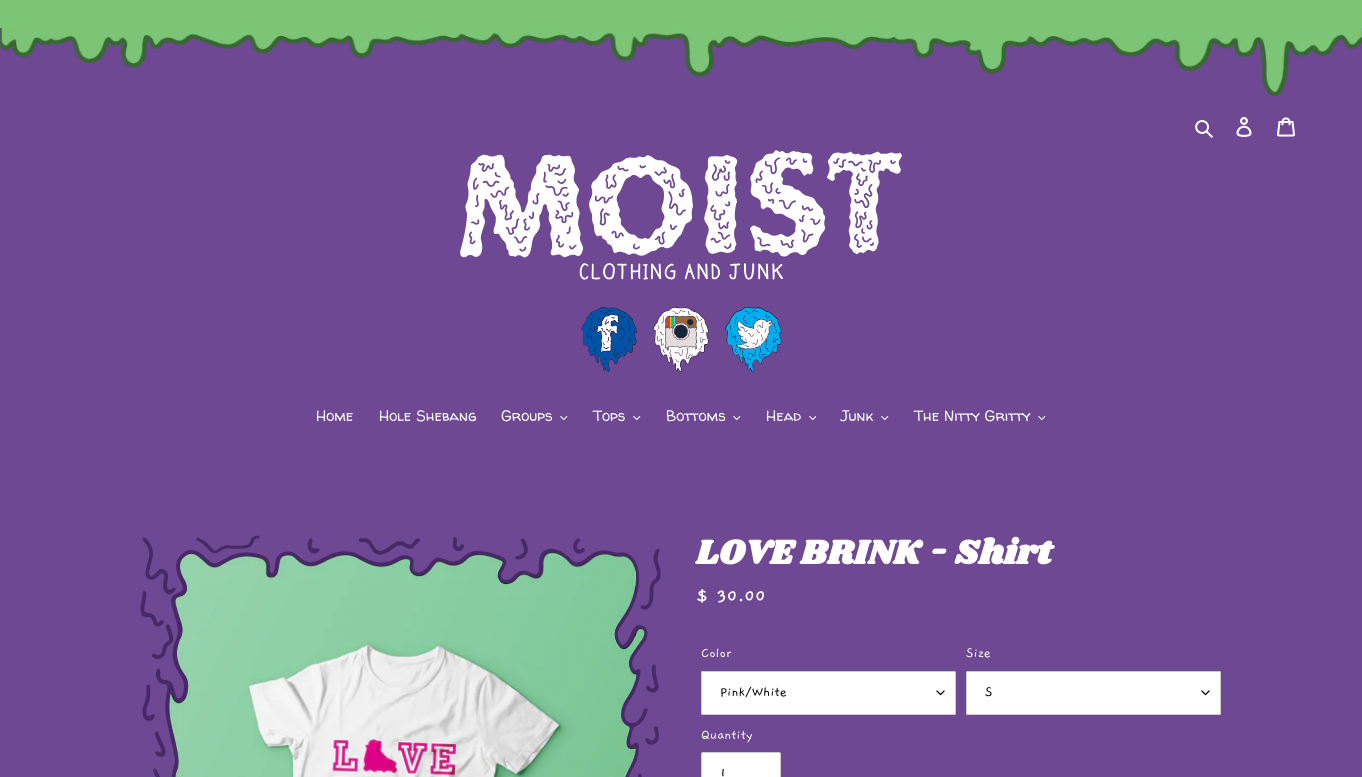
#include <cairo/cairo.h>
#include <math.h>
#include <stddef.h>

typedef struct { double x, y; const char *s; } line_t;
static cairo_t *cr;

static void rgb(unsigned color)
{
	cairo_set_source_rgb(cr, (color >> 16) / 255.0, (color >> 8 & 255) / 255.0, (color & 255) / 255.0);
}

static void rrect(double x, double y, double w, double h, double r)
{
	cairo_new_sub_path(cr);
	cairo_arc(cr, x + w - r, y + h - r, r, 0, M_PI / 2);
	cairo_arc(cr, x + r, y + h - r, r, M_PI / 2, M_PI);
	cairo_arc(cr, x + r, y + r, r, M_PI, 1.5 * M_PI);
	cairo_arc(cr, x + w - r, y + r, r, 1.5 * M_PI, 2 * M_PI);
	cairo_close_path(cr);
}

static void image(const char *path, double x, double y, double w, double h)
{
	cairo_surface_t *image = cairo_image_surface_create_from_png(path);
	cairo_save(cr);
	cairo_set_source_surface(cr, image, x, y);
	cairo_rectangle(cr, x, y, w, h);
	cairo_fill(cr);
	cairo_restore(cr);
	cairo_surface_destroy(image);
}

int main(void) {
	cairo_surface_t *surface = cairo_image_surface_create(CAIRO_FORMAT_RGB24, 1362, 777);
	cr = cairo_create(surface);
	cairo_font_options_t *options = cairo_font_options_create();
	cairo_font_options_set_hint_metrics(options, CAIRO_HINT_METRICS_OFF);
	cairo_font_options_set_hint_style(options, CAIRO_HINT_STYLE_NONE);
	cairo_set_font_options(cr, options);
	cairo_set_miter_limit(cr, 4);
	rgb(0x6e4893);
	cairo_paint(cr);
	rgb(0x7cc576);
	cairo_rectangle(cr, 0, 0, 1362, 28);
	cairo_fill(cr);
	image("img/1.png", 0, 28, 1362, 69);
	image("img/2.png", 1195, 120, 18, 18);
	image("img/3.png", 1236, 117, 16, 20);
	image("img/4.png", 1277, 117, 18, 20);
	image("img/5.png", 460, 150, 442, 130);
	image("img/6.png", 581, 307, 56, 65);
	image("img/7.png", 653, 307, 56, 65);
	image("img/8.png", 725, 307, 57, 65);
	image("img/9.png", 560, 416, 8, 4);
	image("img/9.png", 633, 416, 8, 4);
	image("img/9.png", 733, 416, 8, 4);
	image("img/10.png", 809, 416, 7, 4);
	image("img/9.png", 881, 416, 8, 4);
	image("img/9.png", 1038, 416, 8, 4);
	image("img/12.png", 169, 552, 476, 225);
	image("img/11.png", 136, 533, 528, 244);
	rgb(0xffffff);
	rrect(701, 671, 255, 44, 2);
	cairo_fill(cr);
	image("img/13.png", 936, 690, 9, 6);
	rrect(701.5, 671.5, 254, 43, 1.5);
	rgb(0xcccccc);
	cairo_set_line_width(cr, 1);
	cairo_stroke(cr);
	rgb(0xffffff);
	rrect(966, 671, 255, 44, 2);
	cairo_fill(cr);
	image("img/13.png", 1201, 690, 9, 6);
	rrect(966.5, 671.5, 254, 43, 1.5);
	rgb(0xcccccc);
	cairo_stroke(cr);
	rgb(0xffffff);
	rrect(701.5, 752.5, 79, 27, 1.5);
	cairo_fill_preserve(cr);
	rgb(0xcccccc);
	cairo_stroke(cr);
	cairo_select_font_face(cr, "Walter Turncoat", CAIRO_FONT_SLANT_NORMAL, CAIRO_FONT_WEIGHT_NORMAL);
	cairo_set_font_size(cr, 15);
	rgb(0xffffff);
	{
		static const line_t items[] = {
			{316, 421, "Home"},
			{379, 421, "Hole Shebang"},
			{501, 421, "Groups"},
			{593, 421, "Tops"},
			{666, 421, "Bottoms"},
			{766, 421, "Head"},
			{841, 421, "Junk"},
			{914, 421, "The Nitty Gritty"},
		};
		for (size_t i = 0; i < sizeof items / sizeof *items; i++) {
			cairo_move_to(cr, items[i].x, items[i].y);
			cairo_show_text(cr, items[i].s);
		}
	}
	cairo_select_font_face(cr, "Shrikhand", CAIRO_FONT_SLANT_NORMAL, CAIRO_FONT_WEIGHT_BOLD);
	cairo_set_font_size(cr, 35);
	cairo_move_to(cr, 696, 564);
	cairo_show_text(cr, "LOVE BRINK - Shirt");
	cairo_select_font_face(cr, "Gaegu", CAIRO_FONT_SLANT_NORMAL, CAIRO_FONT_WEIGHT_BOLD);
	cairo_set_font_size(cr, 19);
	cairo_move_to(cr, 696, 601);
	cairo_show_text(cr, "$ 30.00");
	cairo_select_font_face(cr, "Gaegu", CAIRO_FONT_SLANT_NORMAL, CAIRO_FONT_WEIGHT_NORMAL);
	cairo_set_font_size(cr, 15);
	cairo_move_to(cr, 701, 657);
	cairo_show_text(cr, "Color");
	rgb(0x000000);
	cairo_move_to(cr, 720, 696);
	cairo_show_text(cr, "Pink/White");
	rgb(0xffffff);
	cairo_move_to(cr, 966, 657);
	cairo_show_text(cr, "Size");
	rgb(0x000000);
	cairo_move_to(cr, 985, 696);
	cairo_show_text(cr, "S");
	rgb(0xffffff);
	cairo_move_to(cr, 701, 739);
	cairo_show_text(cr, "Quantity");
	rgb(0x000000);
	cairo_move_to(cr, 720, 777);
	cairo_show_text(cr, "1");
	cairo_surface_write_to_png(surface, "page.png");
	cairo_font_options_destroy(options);
	cairo_destroy(cr);
	cairo_surface_destroy(surface);
	return 0;
}
